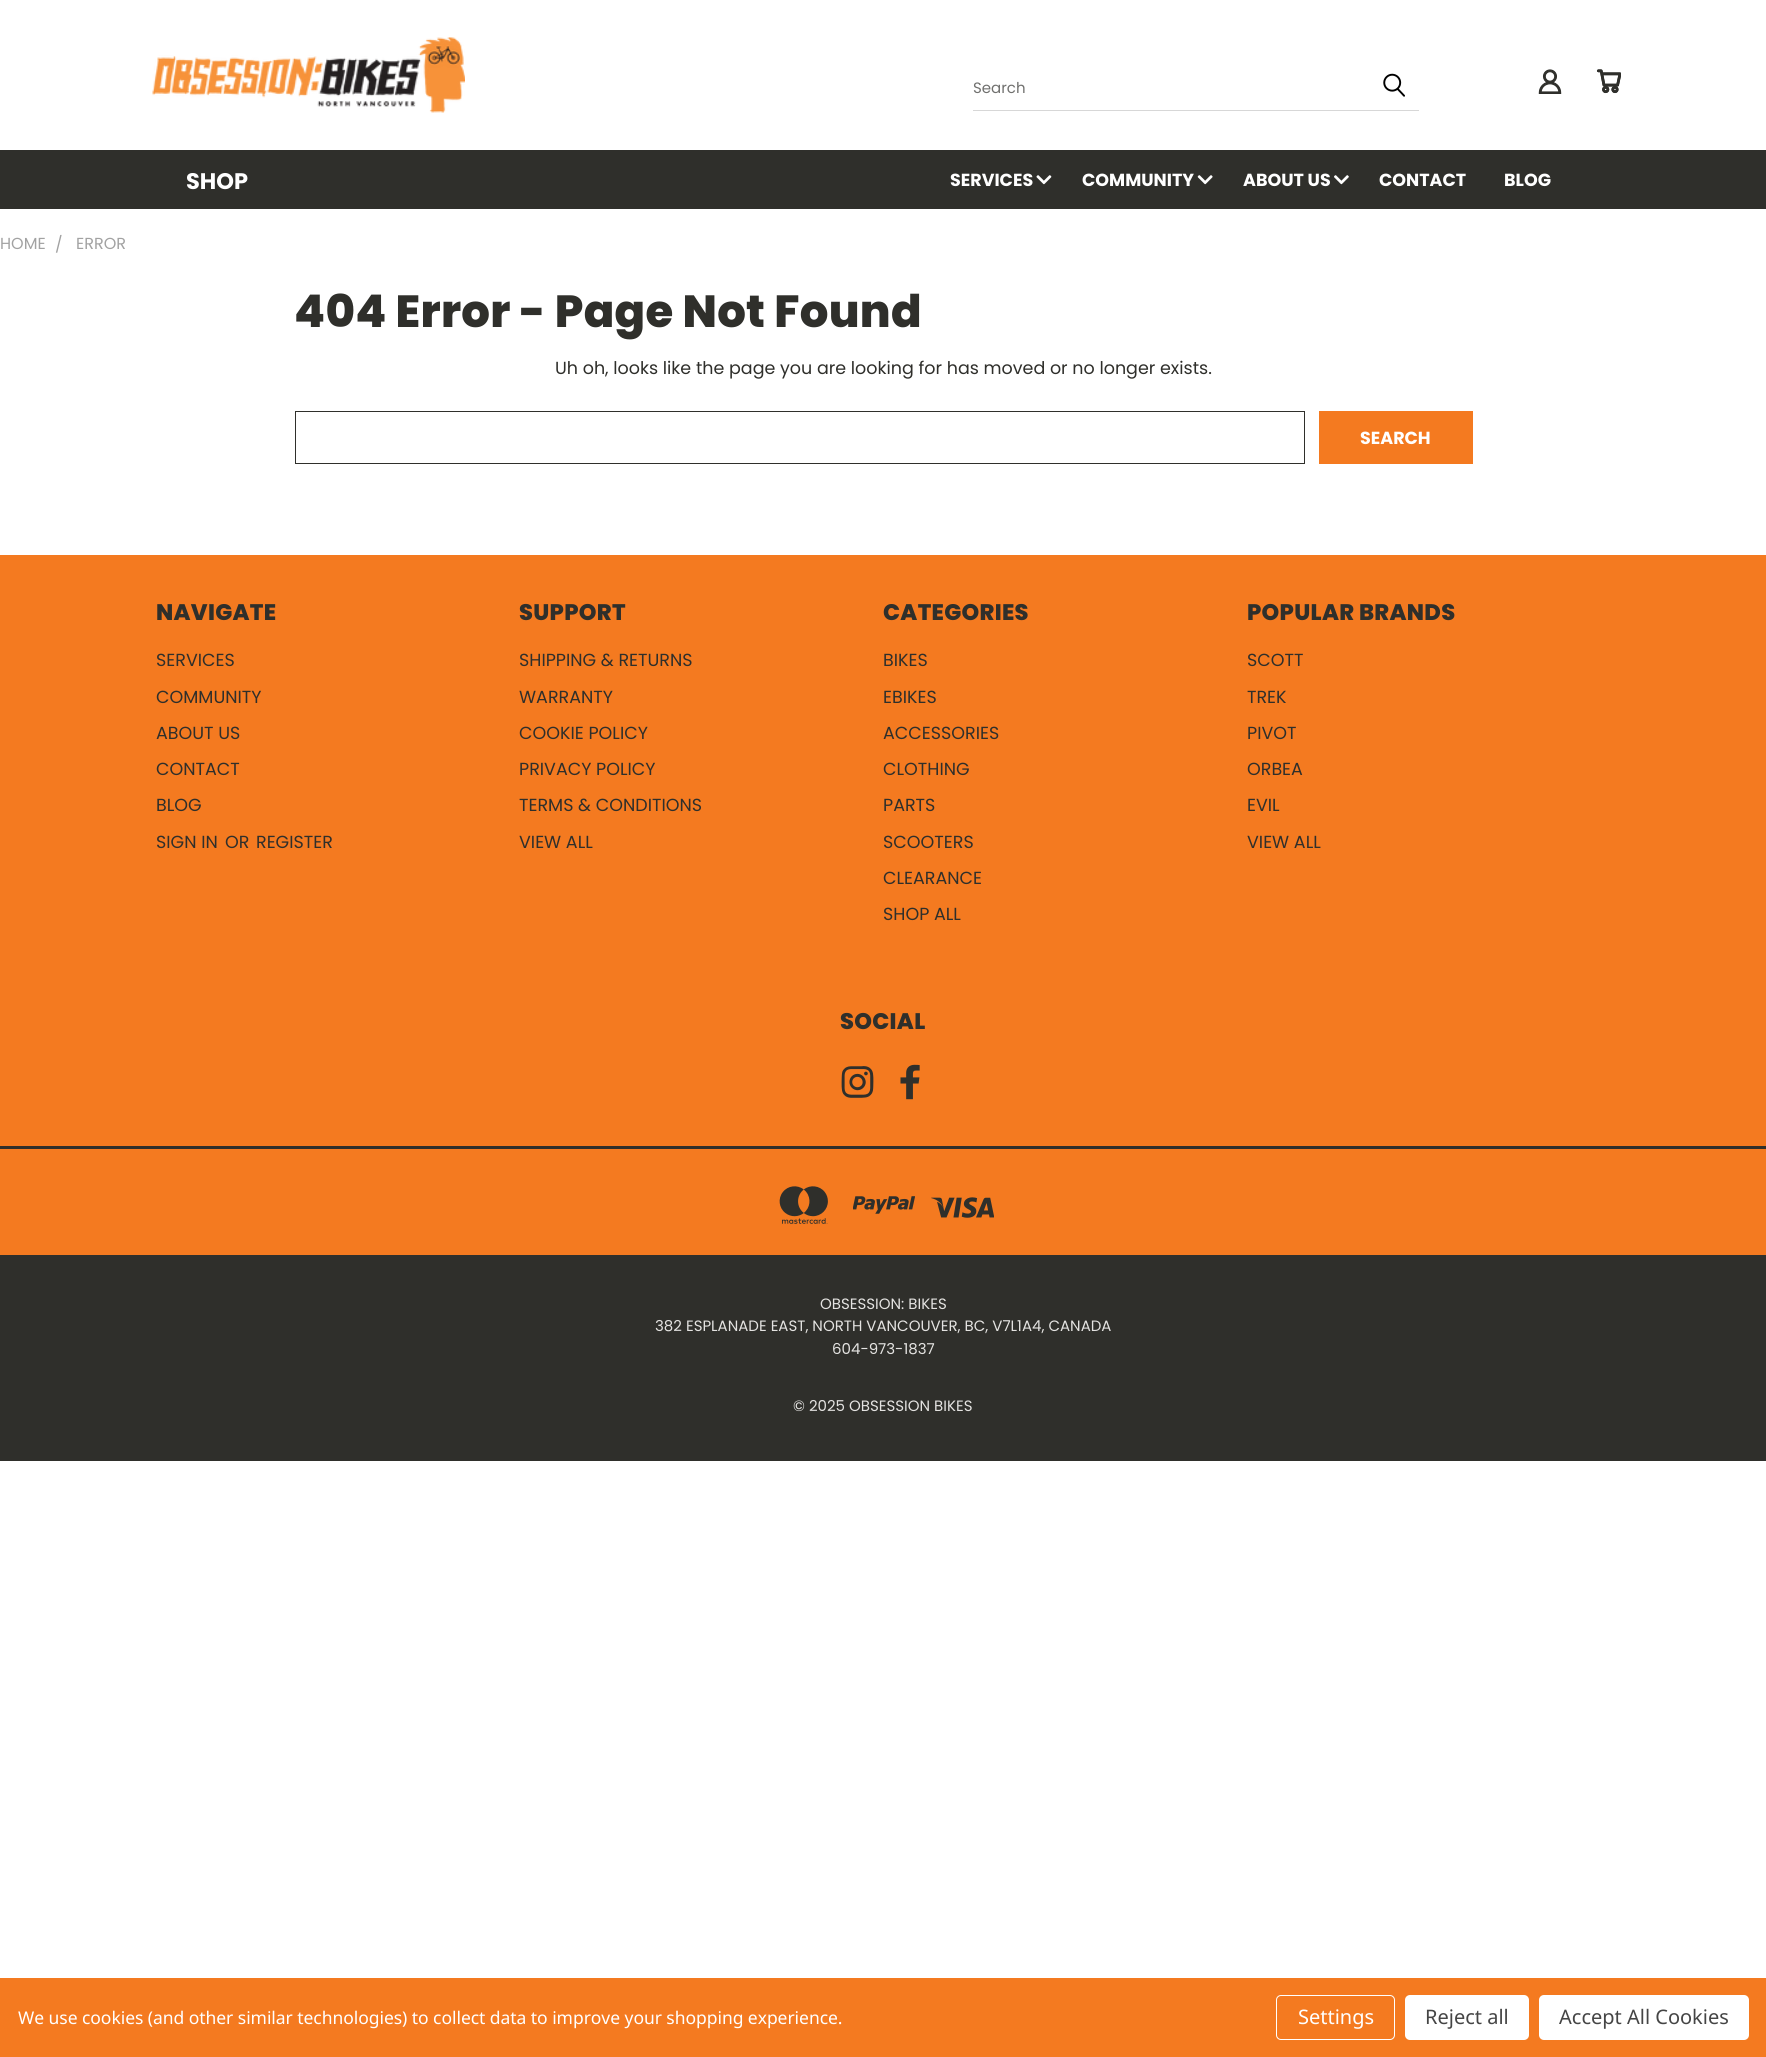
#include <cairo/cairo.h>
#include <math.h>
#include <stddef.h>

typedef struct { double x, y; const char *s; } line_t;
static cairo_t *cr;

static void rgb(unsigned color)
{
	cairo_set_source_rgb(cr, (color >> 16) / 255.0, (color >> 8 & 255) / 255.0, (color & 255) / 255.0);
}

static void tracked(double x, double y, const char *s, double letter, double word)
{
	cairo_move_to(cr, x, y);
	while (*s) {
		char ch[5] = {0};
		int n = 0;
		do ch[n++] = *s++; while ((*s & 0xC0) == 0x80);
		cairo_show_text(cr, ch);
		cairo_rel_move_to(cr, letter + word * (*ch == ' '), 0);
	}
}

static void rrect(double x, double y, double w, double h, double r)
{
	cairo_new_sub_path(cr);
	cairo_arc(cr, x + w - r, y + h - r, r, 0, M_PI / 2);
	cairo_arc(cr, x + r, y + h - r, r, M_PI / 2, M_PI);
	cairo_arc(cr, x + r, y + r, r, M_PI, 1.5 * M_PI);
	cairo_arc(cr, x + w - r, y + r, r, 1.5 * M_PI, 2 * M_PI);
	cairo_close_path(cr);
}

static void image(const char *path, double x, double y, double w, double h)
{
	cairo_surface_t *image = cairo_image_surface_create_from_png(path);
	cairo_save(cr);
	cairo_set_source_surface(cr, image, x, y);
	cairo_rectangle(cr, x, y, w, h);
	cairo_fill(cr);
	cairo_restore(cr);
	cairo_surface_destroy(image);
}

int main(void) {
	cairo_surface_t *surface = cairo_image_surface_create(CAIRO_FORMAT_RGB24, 1766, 2057);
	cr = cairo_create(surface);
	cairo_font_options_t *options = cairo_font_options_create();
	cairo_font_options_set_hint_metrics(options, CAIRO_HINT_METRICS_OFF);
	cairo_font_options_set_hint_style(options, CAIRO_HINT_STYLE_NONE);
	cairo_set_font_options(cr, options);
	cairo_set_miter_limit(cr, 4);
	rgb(0xffffff);
	cairo_paint(cr);
	image("img/1.png", 152, 37, 313, 76);
	rgb(0xd7d7d7);
	cairo_rectangle(cr, 973, 110, 446, 1);
	cairo_fill(cr);
	image("img/2.png", 1383, 73, 22, 24);
	image("img/3.png", 1538, 69, 24, 25);
	image("img/4.png", 1596, 69, 25, 25);
	rgb(0x2f2f2b);
	cairo_rectangle(cr, 0, 150, 1766, 59);
	cairo_fill(cr);
	image("img/5.png", 1036, 175, 16, 10);
	image("img/6.png", 1197, 175, 16, 10);
	image("img/7.png", 1334, 175, 15, 10);
	cairo_rectangle(cr, 295.5, 411.5, 1009, 52);
	cairo_set_line_width(cr, 1);
	cairo_stroke(cr);
	rgb(0xf47a20);
	cairo_rectangle(cr, 1319, 411, 154, 53);
	cairo_fill(cr);
	cairo_rectangle(cr, 0, 555, 1766, 700);
	cairo_fill(cr);
	image("img/8.png", 841, 1066, 33, 32);
	image("img/9.png", 900, 1064, 20, 36);
	rgb(0x2f2f2b);
	cairo_rectangle(cr, 0, 1146, 1766, 3);
	cairo_fill(cr);
	image("img/10.png", 779, 1186, 49, 38);
	image("img/11.png", 853, 1196, 62, 18);
	image("img/12.png", 931, 1197, 63, 21);
	cairo_rectangle(cr, 0, 1255, 1766, 206);
	cairo_fill(cr);
	rgb(0xf47a20);
	cairo_rectangle(cr, 0, 1978, 1766, 79);
	cairo_fill(cr);
	rrect(1276.5, 1995.5, 118, 44, 4.5);
	rgb(0xffffff);
	cairo_stroke(cr);
	rrect(1405, 1995, 124, 45, 5);
	cairo_fill(cr);
	rrect(1539, 1995, 210, 45, 5);
	cairo_fill(cr);
	cairo_select_font_face(cr, "Poppins", CAIRO_FONT_SLANT_NORMAL, CAIRO_FONT_WEIGHT_NORMAL);
	cairo_set_font_size(cr, 15);
	rgb(0x70706e);
	cairo_move_to(cr, 973, 93);
	cairo_show_text(cr, "Search");
	cairo_select_font_face(cr, "Poppins", CAIRO_FONT_SLANT_NORMAL, CAIRO_FONT_WEIGHT_BOLD);
	cairo_set_font_size(cr, 22.5);
	rgb(0xffffff);
	cairo_move_to(cr, 186, 189);
	cairo_show_text(cr, "SHOP");
	cairo_set_font_size(cr, 17.5);
	{
		static const line_t items[] = {
			{950, 186, "SERVICES"},
			{1082, 186, "COMMUNITY"},
			{1243, 186, "ABOUT US"},
			{1379, 186, "CONTACT"},
			{1504, 186, "BLOG"},
		};
		for (size_t i = 0; i < sizeof items / sizeof *items; i++) {
			cairo_move_to(cr, items[i].x, items[i].y);
			cairo_show_text(cr, items[i].s);
		}
	}
	cairo_select_font_face(cr, "Poppins", CAIRO_FONT_SLANT_NORMAL, CAIRO_FONT_WEIGHT_NORMAL);
	cairo_set_font_size(cr, 16);
	rgb(0xa2a2a2);
	{
		static const line_t items[] = {
			{0, 249, "HOME"},
			{55, 250, "/"},
			{76, 249, "ERROR"},
		};
		for (size_t i = 0; i < sizeof items / sizeof *items; i++) {
			cairo_move_to(cr, items[i].x, items[i].y);
			cairo_show_text(cr, items[i].s);
		}
	}
	cairo_select_font_face(cr, "Poppins ExtraBold", CAIRO_FONT_SLANT_NORMAL, CAIRO_FONT_WEIGHT_NORMAL);
	cairo_set_font_size(cr, 45);
	rgb(0x2f2f2b);
	tracked(294, 327, "404 Error - Page Not Found", 0.3, 0);
	cairo_select_font_face(cr, "Poppins", CAIRO_FONT_SLANT_NORMAL, CAIRO_FONT_WEIGHT_NORMAL);
	cairo_set_font_size(cr, 17.5);
	cairo_move_to(cr, 555, 374);
	cairo_show_text(cr, "Uh oh, looks like the page you are looking for has moved or no longer exists.");
	cairo_select_font_face(cr, "Poppins", CAIRO_FONT_SLANT_NORMAL, CAIRO_FONT_WEIGHT_BOLD);
	rgb(0xffffff);
	cairo_move_to(cr, 1360, 444);
	cairo_show_text(cr, "SEARCH");
	cairo_select_font_face(cr, "Poppins ExtraBold", CAIRO_FONT_SLANT_NORMAL, CAIRO_FONT_WEIGHT_NORMAL);
	cairo_set_font_size(cr, 22.5);
	rgb(0x2f2f2b);
	tracked(156, 620, "NAVIGATE", 0.3, 0);
	cairo_select_font_face(cr, "Poppins", CAIRO_FONT_SLANT_NORMAL, CAIRO_FONT_WEIGHT_NORMAL);
	cairo_set_font_size(cr, 17.5);
	{
		static const line_t items[] = {
			{156, 666, "SERVICES"},
			{156, 703, "COMMUNITY"},
			{156, 739, "ABOUT US"},
			{156, 775, "CONTACT"},
			{156, 811, "BLOG"},
			{156, 848, "SIGN IN"},
			{225, 848, "OR"},
			{256, 848, "REGISTER"},
		};
		for (size_t i = 0; i < sizeof items / sizeof *items; i++) {
			cairo_move_to(cr, items[i].x, items[i].y);
			cairo_show_text(cr, items[i].s);
		}
	}
	cairo_select_font_face(cr, "Poppins ExtraBold", CAIRO_FONT_SLANT_NORMAL, CAIRO_FONT_WEIGHT_NORMAL);
	cairo_set_font_size(cr, 22.5);
	tracked(519, 620, "SUPPORT", 0.3, 0);
	cairo_select_font_face(cr, "Poppins", CAIRO_FONT_SLANT_NORMAL, CAIRO_FONT_WEIGHT_NORMAL);
	cairo_set_font_size(cr, 17.5);
	{
		static const line_t items[] = {
			{519, 666, "SHIPPING & RETURNS"},
			{519, 703, "WARRANTY"},
			{519, 739, "COOKIE POLICY"},
			{519, 775, "PRIVACY POLICY"},
			{519, 811, "TERMS & CONDITIONS"},
			{519, 848, "VIEW ALL"},
		};
		for (size_t i = 0; i < sizeof items / sizeof *items; i++) {
			cairo_move_to(cr, items[i].x, items[i].y);
			cairo_show_text(cr, items[i].s);
		}
	}
	cairo_select_font_face(cr, "Poppins ExtraBold", CAIRO_FONT_SLANT_NORMAL, CAIRO_FONT_WEIGHT_NORMAL);
	cairo_set_font_size(cr, 22.5);
	tracked(883, 620, "CATEGORIES", 0.3, 0);
	cairo_select_font_face(cr, "Poppins", CAIRO_FONT_SLANT_NORMAL, CAIRO_FONT_WEIGHT_NORMAL);
	cairo_set_font_size(cr, 17.5);
	{
		static const line_t items[] = {
			{883, 666, "BIKES"},
			{883, 703, "EBIKES"},
			{883, 739, "ACCESSORIES"},
			{883, 775, "CLOTHING"},
			{883, 811, "PARTS"},
			{883, 848, "SCOOTERS"},
			{883, 884, "CLEARANCE"},
			{883, 920, "SHOP ALL"},
		};
		for (size_t i = 0; i < sizeof items / sizeof *items; i++) {
			cairo_move_to(cr, items[i].x, items[i].y);
			cairo_show_text(cr, items[i].s);
		}
	}
	cairo_select_font_face(cr, "Poppins ExtraBold", CAIRO_FONT_SLANT_NORMAL, CAIRO_FONT_WEIGHT_NORMAL);
	cairo_set_font_size(cr, 22.5);
	tracked(1247, 620, "POPULAR BRANDS", 0.3, 0);
	cairo_select_font_face(cr, "Poppins", CAIRO_FONT_SLANT_NORMAL, CAIRO_FONT_WEIGHT_NORMAL);
	cairo_set_font_size(cr, 17.5);
	{
		static const line_t items[] = {
			{1247, 666, "SCOTT"},
			{1247, 703, "TREK"},
			{1247, 739, "PIVOT"},
			{1247, 775, "ORBEA"},
			{1247, 811, "EVIL"},
			{1247, 848, "VIEW ALL"},
		};
		for (size_t i = 0; i < sizeof items / sizeof *items; i++) {
			cairo_move_to(cr, items[i].x, items[i].y);
			cairo_show_text(cr, items[i].s);
		}
	}
	cairo_select_font_face(cr, "Poppins ExtraBold", CAIRO_FONT_SLANT_NORMAL, CAIRO_FONT_WEIGHT_NORMAL);
	cairo_set_font_size(cr, 22.5);
	tracked(840, 1029, "SOCIAL", 0.3, 0);
	cairo_select_font_face(cr, "Poppins", CAIRO_FONT_SLANT_NORMAL, CAIRO_FONT_WEIGHT_NORMAL);
	cairo_set_font_size(cr, 15);
	rgb(0xe4e3e1);
	{
		static const line_t items[] = {
			{820, 1309, "OBSESSION: BIKES"},
			{655, 1331, "382 ESPLANADE EAST, NORTH VANCOUVER, BC, V7L1A4, CANADA"},
			{832, 1354, "604-973-1837"},
			{793, 1411, "© 2025 OBSESSION BIKES"},
		};
		for (size_t i = 0; i < sizeof items / sizeof *items; i++) {
			cairo_move_to(cr, items[i].x, items[i].y);
			cairo_show_text(cr, items[i].s);
		}
	}
	cairo_select_font_face(cr, "Noto Sans", CAIRO_FONT_SLANT_NORMAL, CAIRO_FONT_WEIGHT_NORMAL);
	cairo_set_font_size(cr, 17.5);
	rgb(0xffffff);
	tracked(18, 2024, "We use cookies (and other similar technologies) to collect data to improve your shopping experience.", -0.05, 0);
	cairo_set_font_size(cr, 20);
	cairo_move_to(cr, 1298, 2024);
	cairo_show_text(cr, "Settings");
	rgb(0x454545);
	cairo_move_to(cr, 1425, 2024);
	cairo_show_text(cr, "Reject all");
	cairo_move_to(cr, 1559, 2024);
	cairo_show_text(cr, "Accept All Cookies");
	cairo_surface_write_to_png(surface, "page.png");
	cairo_font_options_destroy(options);
	cairo_destroy(cr);
	cairo_surface_destroy(surface);
	return 0;
}
